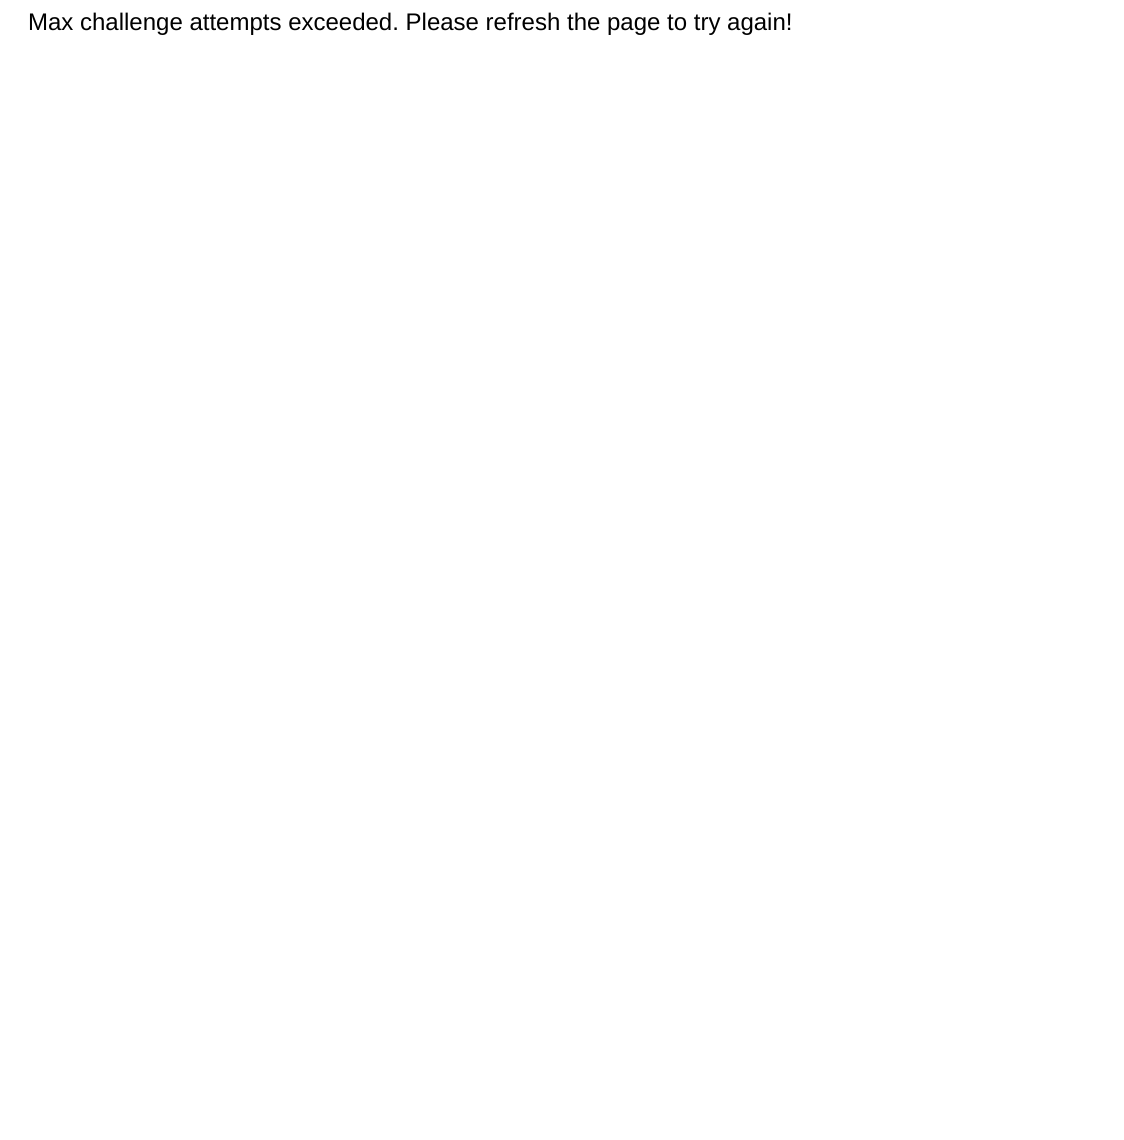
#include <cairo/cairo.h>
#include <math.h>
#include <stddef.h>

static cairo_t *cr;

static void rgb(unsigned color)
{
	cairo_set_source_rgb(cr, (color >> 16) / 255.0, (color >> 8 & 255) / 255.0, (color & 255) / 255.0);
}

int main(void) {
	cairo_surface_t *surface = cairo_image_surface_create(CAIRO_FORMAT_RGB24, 1124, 1140);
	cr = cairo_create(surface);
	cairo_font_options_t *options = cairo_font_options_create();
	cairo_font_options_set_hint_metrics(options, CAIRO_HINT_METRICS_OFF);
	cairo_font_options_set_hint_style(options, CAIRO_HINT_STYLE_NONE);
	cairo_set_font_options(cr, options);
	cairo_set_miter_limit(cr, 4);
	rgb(0xffffff);
	cairo_paint(cr);
	cairo_select_font_face(cr, "Liberation Sans", CAIRO_FONT_SLANT_NORMAL, CAIRO_FONT_WEIGHT_NORMAL);
	cairo_set_font_size(cr, 24);
	rgb(0x000000);
	cairo_move_to(cr, 28, 30);
	cairo_show_text(cr, "Max challenge attempts exceeded. Please refresh the page to try again!");
	cairo_surface_write_to_png(surface, "page.png");
	cairo_font_options_destroy(options);
	cairo_destroy(cr);
	cairo_surface_destroy(surface);
	return 0;
}
